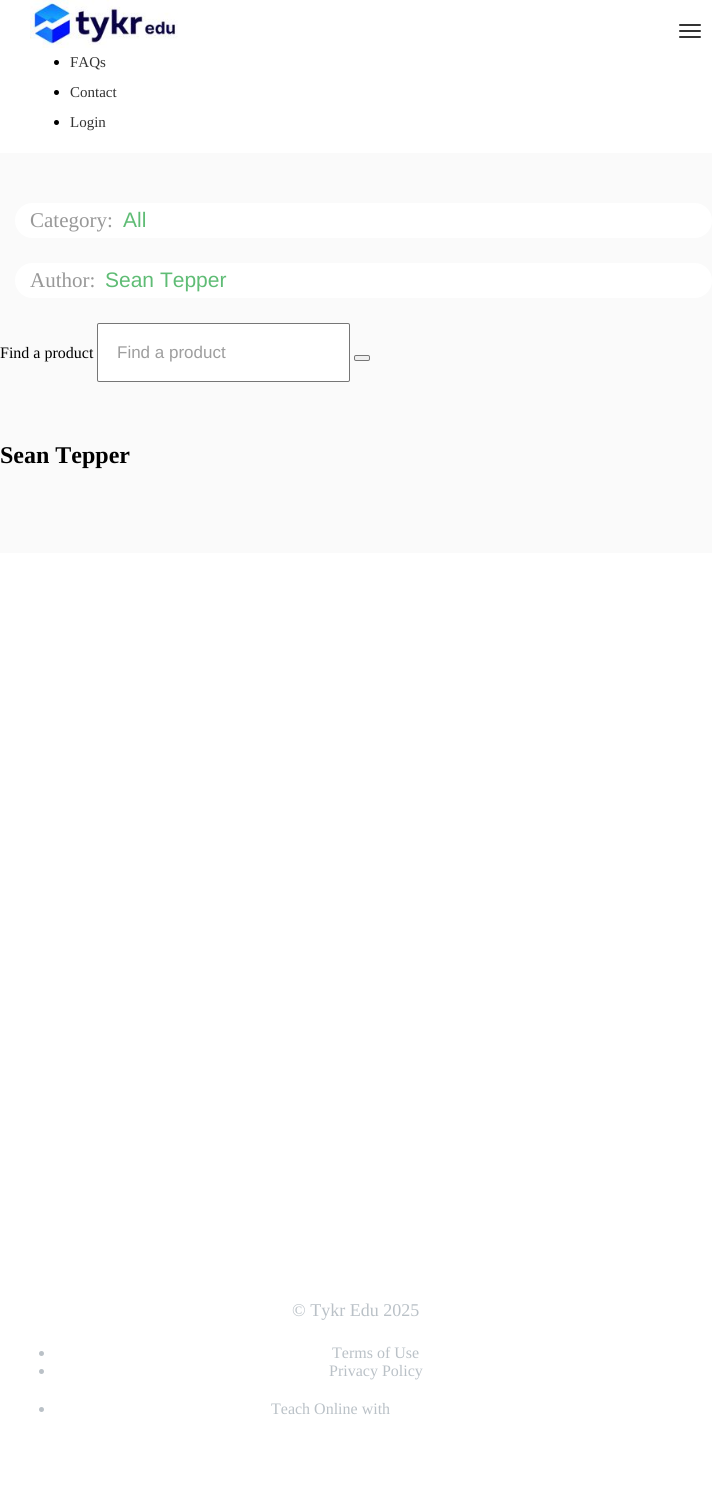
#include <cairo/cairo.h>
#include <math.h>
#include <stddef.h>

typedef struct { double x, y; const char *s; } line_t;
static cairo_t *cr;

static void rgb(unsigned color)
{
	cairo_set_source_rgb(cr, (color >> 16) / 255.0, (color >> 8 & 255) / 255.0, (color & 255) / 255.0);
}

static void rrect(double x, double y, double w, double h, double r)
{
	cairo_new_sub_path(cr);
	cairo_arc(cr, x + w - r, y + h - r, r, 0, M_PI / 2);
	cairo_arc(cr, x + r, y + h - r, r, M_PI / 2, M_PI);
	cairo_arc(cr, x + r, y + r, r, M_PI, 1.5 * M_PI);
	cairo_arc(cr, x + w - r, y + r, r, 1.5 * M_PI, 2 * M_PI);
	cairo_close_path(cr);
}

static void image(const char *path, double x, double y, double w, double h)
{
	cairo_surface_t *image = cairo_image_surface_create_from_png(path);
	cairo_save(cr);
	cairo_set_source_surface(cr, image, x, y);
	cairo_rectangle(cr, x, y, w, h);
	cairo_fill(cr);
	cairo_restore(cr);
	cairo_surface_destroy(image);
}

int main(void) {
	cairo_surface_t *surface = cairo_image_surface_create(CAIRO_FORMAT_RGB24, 712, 1485);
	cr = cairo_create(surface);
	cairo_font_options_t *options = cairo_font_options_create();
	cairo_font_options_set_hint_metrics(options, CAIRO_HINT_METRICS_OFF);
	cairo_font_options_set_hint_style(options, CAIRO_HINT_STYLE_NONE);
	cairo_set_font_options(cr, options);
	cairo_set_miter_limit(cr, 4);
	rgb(0xffffff);
	cairo_paint(cr);
	image("img/1.png", 30, 0, 148, 48);
	rgb(0x333333);
	rrect(679, 24, 22, 2, 1);
	cairo_fill(cr);
	rrect(679, 30, 22, 2, 1);
	cairo_fill(cr);
	rrect(679, 36, 22, 2, 1);
	cairo_fill(cr);
	rgb(0x000000);
	cairo_arc(cr, 56.5, 62.5, 2.5, 0, 2 * M_PI);
	cairo_fill(cr);
	cairo_arc(cr, 56.5, 92.5, 2.5, 0, 2 * M_PI);
	cairo_fill(cr);
	cairo_arc(cr, 56.5, 122.5, 2.5, 0, 2 * M_PI);
	cairo_fill(cr);
	rgb(0xfafafa);
	cairo_rectangle(cr, 0, 153, 712, 400);
	cairo_fill(cr);
	rgb(0xffffff);
	rrect(15, 203, 697, 35, 17.5);
	cairo_fill(cr);
	rrect(15, 263, 697, 35, 17.5);
	cairo_fill(cr);
	rrect(97.5, 323.5, 252, 58, 1.5);
	cairo_fill_preserve(cr);
	rgb(0x767676);
	cairo_set_line_width(cr, 1);
	cairo_stroke(cr);
	rgb(0xefefef);
	rrect(354.5, 355.5, 15, 5, 1.5);
	cairo_fill_preserve(cr);
	rgb(0x767676);
	cairo_stroke(cr);
	rgb(0xbac1c7);
	cairo_arc(cr, 41.5, 1353.5, 2.5, 0, 2 * M_PI);
	cairo_fill(cr);
	cairo_arc(cr, 41.5, 1371.5, 2.5, 0, 2 * M_PI);
	cairo_fill(cr);
	cairo_arc(cr, 41.5, 1409.5, 2.5, 0, 2 * M_PI);
	cairo_fill(cr);
	cairo_select_font_face(cr, "Liberation Serif", CAIRO_FONT_SLANT_NORMAL, CAIRO_FONT_WEIGHT_NORMAL);
	cairo_set_font_size(cr, 15);
	rgb(0x333333);
	{
		static const line_t items[] = {
			{70, 67, "FAQs"},
			{70, 97, "Contact"},
			{70, 127, "Login"},
		};
		for (size_t i = 0; i < sizeof items / sizeof *items; i++) {
			cairo_move_to(cr, items[i].x, items[i].y);
			cairo_show_text(cr, items[i].s);
		}
	}
	cairo_set_font_size(cr, 21);
	rgb(0x989898);
	cairo_move_to(cr, 30, 227);
	cairo_show_text(cr, "Category:");
	cairo_select_font_face(cr, "Liberation Sans", CAIRO_FONT_SLANT_NORMAL, CAIRO_FONT_WEIGHT_NORMAL);
	rgb(0x5fbc75);
	cairo_move_to(cr, 123, 227);
	cairo_show_text(cr, "All");
	cairo_select_font_face(cr, "Liberation Serif", CAIRO_FONT_SLANT_NORMAL, CAIRO_FONT_WEIGHT_NORMAL);
	rgb(0x989898);
	cairo_move_to(cr, 30, 287);
	cairo_show_text(cr, "Author:");
	cairo_select_font_face(cr, "Liberation Sans", CAIRO_FONT_SLANT_NORMAL, CAIRO_FONT_WEIGHT_NORMAL);
	rgb(0x5fbc75);
	cairo_move_to(cr, 105, 287);
	cairo_show_text(cr, "Sean Tepper");
	cairo_select_font_face(cr, "Liberation Serif", CAIRO_FONT_SLANT_NORMAL, CAIRO_FONT_WEIGHT_NORMAL);
	cairo_set_font_size(cr, 16);
	rgb(0x000000);
	cairo_move_to(cr, 0, 358);
	cairo_show_text(cr, "Find a product");
	cairo_select_font_face(cr, "Liberation Sans", CAIRO_FONT_SLANT_NORMAL, CAIRO_FONT_WEIGHT_NORMAL);
	cairo_set_font_size(cr, 17);
	rgb(0x9e9e9e);
	cairo_move_to(cr, 117, 358);
	cairo_show_text(cr, "Find a product");
	cairo_select_font_face(cr, "Liberation Serif", CAIRO_FONT_SLANT_NORMAL, CAIRO_FONT_WEIGHT_BOLD);
	cairo_set_font_size(cr, 24);
	rgb(0x000000);
	cairo_move_to(cr, 0, 463);
	cairo_show_text(cr, "Sean Tepper");
	cairo_select_font_face(cr, "Liberation Serif", CAIRO_FONT_SLANT_NORMAL, CAIRO_FONT_WEIGHT_NORMAL);
	cairo_set_font_size(cr, 18);
	rgb(0xbac1c7);
	cairo_move_to(cr, 292, 1316);
	cairo_show_text(cr, "© Tykr Edu 2025");
	cairo_set_font_size(cr, 16);
	{
		static const line_t items[] = {
			{332, 1358, "Terms of Use"},
			{329, 1376, "Privacy Policy"},
			{271, 1414, "Teach Online with"},
		};
		for (size_t i = 0; i < sizeof items / sizeof *items; i++) {
			cairo_move_to(cr, items[i].x, items[i].y);
			cairo_show_text(cr, items[i].s);
		}
	}
	cairo_surface_write_to_png(surface, "page.png");
	cairo_font_options_destroy(options);
	cairo_destroy(cr);
	cairo_surface_destroy(surface);
	return 0;
}
